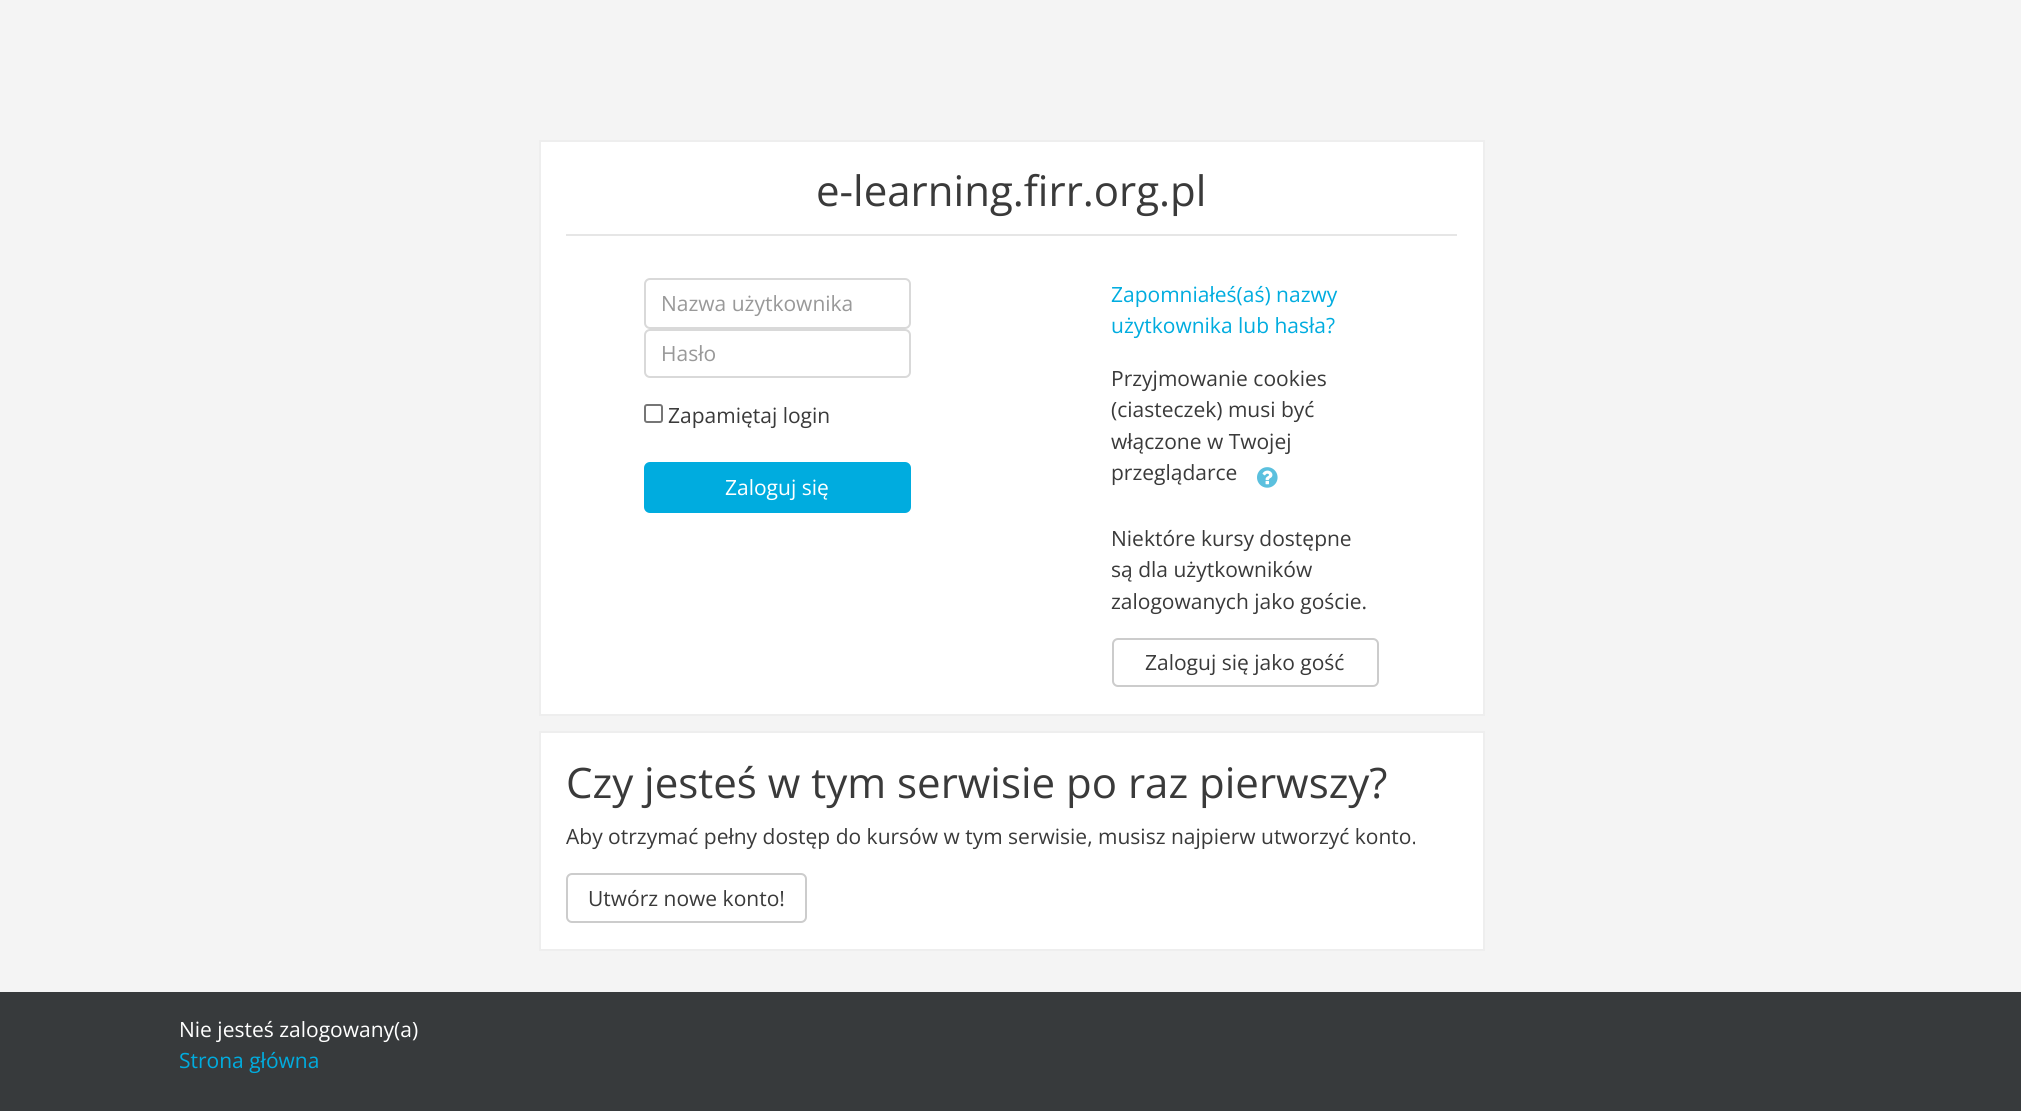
#include <cairo/cairo.h>
#include <math.h>
#include <stddef.h>

typedef struct { double x, y; const char *s; } line_t;
static cairo_t *cr;

static void rgb(unsigned color)
{
	cairo_set_source_rgb(cr, (color >> 16) / 255.0, (color >> 8 & 255) / 255.0, (color & 255) / 255.0);
}

static void rrect(double x, double y, double w, double h, double r)
{
	cairo_new_sub_path(cr);
	cairo_arc(cr, x + w - r, y + h - r, r, 0, M_PI / 2);
	cairo_arc(cr, x + r, y + h - r, r, M_PI / 2, M_PI);
	cairo_arc(cr, x + r, y + r, r, M_PI, 1.5 * M_PI);
	cairo_arc(cr, x + w - r, y + r, r, 1.5 * M_PI, 2 * M_PI);
	cairo_close_path(cr);
}

static void image(const char *path, double x, double y, double w, double h)
{
	cairo_surface_t *image = cairo_image_surface_create_from_png(path);
	cairo_save(cr);
	cairo_set_source_surface(cr, image, x, y);
	cairo_rectangle(cr, x, y, w, h);
	cairo_fill(cr);
	cairo_restore(cr);
	cairo_surface_destroy(image);
}

int main(void) {
	cairo_surface_t *surface = cairo_image_surface_create(CAIRO_FORMAT_RGB24, 2021, 1111);
	cr = cairo_create(surface);
	cairo_font_options_t *options = cairo_font_options_create();
	cairo_font_options_set_hint_metrics(options, CAIRO_HINT_METRICS_OFF);
	cairo_font_options_set_hint_style(options, CAIRO_HINT_STYLE_NONE);
	cairo_set_font_options(cr, options);
	cairo_set_miter_limit(cr, 4);
	rgb(0xf4f4f4);
	cairo_paint(cr);
	rgb(0xffffff);
	cairo_rectangle(cr, 540, 141, 944, 574);
	cairo_fill_preserve(cr);
	rgb(0xeeeeee);
	cairo_stroke(cr);
	rgb(0xe6e6e6);
	cairo_rectangle(cr, 566, 234, 891, 2);
	cairo_fill(cr);
	rrect(645, 279, 265, 49, 5);
	rgb(0xd9d9d9);
	cairo_stroke(cr);
	rrect(645, 330, 265, 47, 5);
	cairo_stroke(cr);
	rrect(645, 405, 17, 17, 2);
	rgb(0x767676);
	cairo_stroke(cr);
	rgb(0x00acdf);
	rrect(645, 463, 265, 49, 5);
	cairo_fill_preserve(cr);
	cairo_stroke(cr);
	image("img/1.png", 1257, 467, 21, 21);
	rrect(1113, 639, 265, 47, 5);
	rgb(0xcccccc);
	cairo_stroke(cr);
	rgb(0xffffff);
	cairo_rectangle(cr, 540, 732, 944, 218);
	cairo_fill_preserve(cr);
	rgb(0xeeeeee);
	cairo_stroke(cr);
	rrect(567, 874, 239, 48, 5);
	rgb(0xcccccc);
	cairo_stroke(cr);
	rgb(0x373a3c);
	cairo_rectangle(cr, 0, 992, 2021, 119);
	cairo_fill(cr);
	cairo_select_font_face(cr, "Open Sans", CAIRO_FONT_SLANT_NORMAL, CAIRO_FONT_WEIGHT_NORMAL);
	cairo_set_font_size(cr, 42);
	rgb(0x3a3a3a);
	cairo_move_to(cr, 816, 206);
	cairo_show_text(cr, "e-learning.firr.org.pl");
	cairo_set_font_size(cr, 21);
	rgb(0x999999);
	cairo_move_to(cr, 661, 311);
	cairo_show_text(cr, "Nazwa użytkownika");
	cairo_move_to(cr, 661, 361);
	cairo_show_text(cr, "Hasło");
	rgb(0x3a3a3a);
	cairo_move_to(cr, 668, 423);
	cairo_show_text(cr, "Zapamiętaj login");
	rgb(0xffffff);
	cairo_move_to(cr, 725, 495);
	cairo_show_text(cr, "Zaloguj się");
	rgb(0x00acdf);
	cairo_move_to(cr, 1111, 302);
	cairo_show_text(cr, "Zapomniałeś(aś) nazwy");
	cairo_move_to(cr, 1111, 333);
	cairo_show_text(cr, "użytkownika lub hasła?");
	rgb(0x3a3a3a);
	{
		static const line_t items[] = {
			{1111, 386, "Przyjmowanie cookies"},
			{1111, 417, "(ciasteczek) musi być"},
			{1111, 449, "włączone w Twojej"},
			{1111, 480, "przeglądarce"},
			{1111, 546, "Niektóre kursy dostępne"},
			{1111, 577, "są dla użytkowników"},
			{1111, 609, "zalogowanych jako goście."},
			{1145, 670, "Zaloguj się jako gość"},
		};
		for (size_t i = 0; i < sizeof items / sizeof *items; i++) {
			cairo_move_to(cr, items[i].x, items[i].y);
			cairo_show_text(cr, items[i].s);
		}
	}
	cairo_set_font_size(cr, 42);
	cairo_move_to(cr, 566, 798);
	cairo_show_text(cr, "Czy jesteś w tym serwisie po raz pierwszy?");
	cairo_set_font_size(cr, 21);
	cairo_move_to(cr, 566, 844);
	cairo_show_text(cr, "Aby otrzymać pełny dostęp do kursów w tym serwisie, musisz najpierw utworzyć konto.");
	cairo_move_to(cr, 588, 906);
	cairo_show_text(cr, "Utwórz nowe konto!");
	rgb(0xffffff);
	cairo_move_to(cr, 179, 1037);
	cairo_show_text(cr, "Nie jesteś zalogowany(a)");
	rgb(0x00acdf);
	cairo_move_to(cr, 179, 1068);
	cairo_show_text(cr, "Strona główna");
	cairo_surface_write_to_png(surface, "page.png");
	cairo_font_options_destroy(options);
	cairo_destroy(cr);
	cairo_surface_destroy(surface);
	return 0;
}
